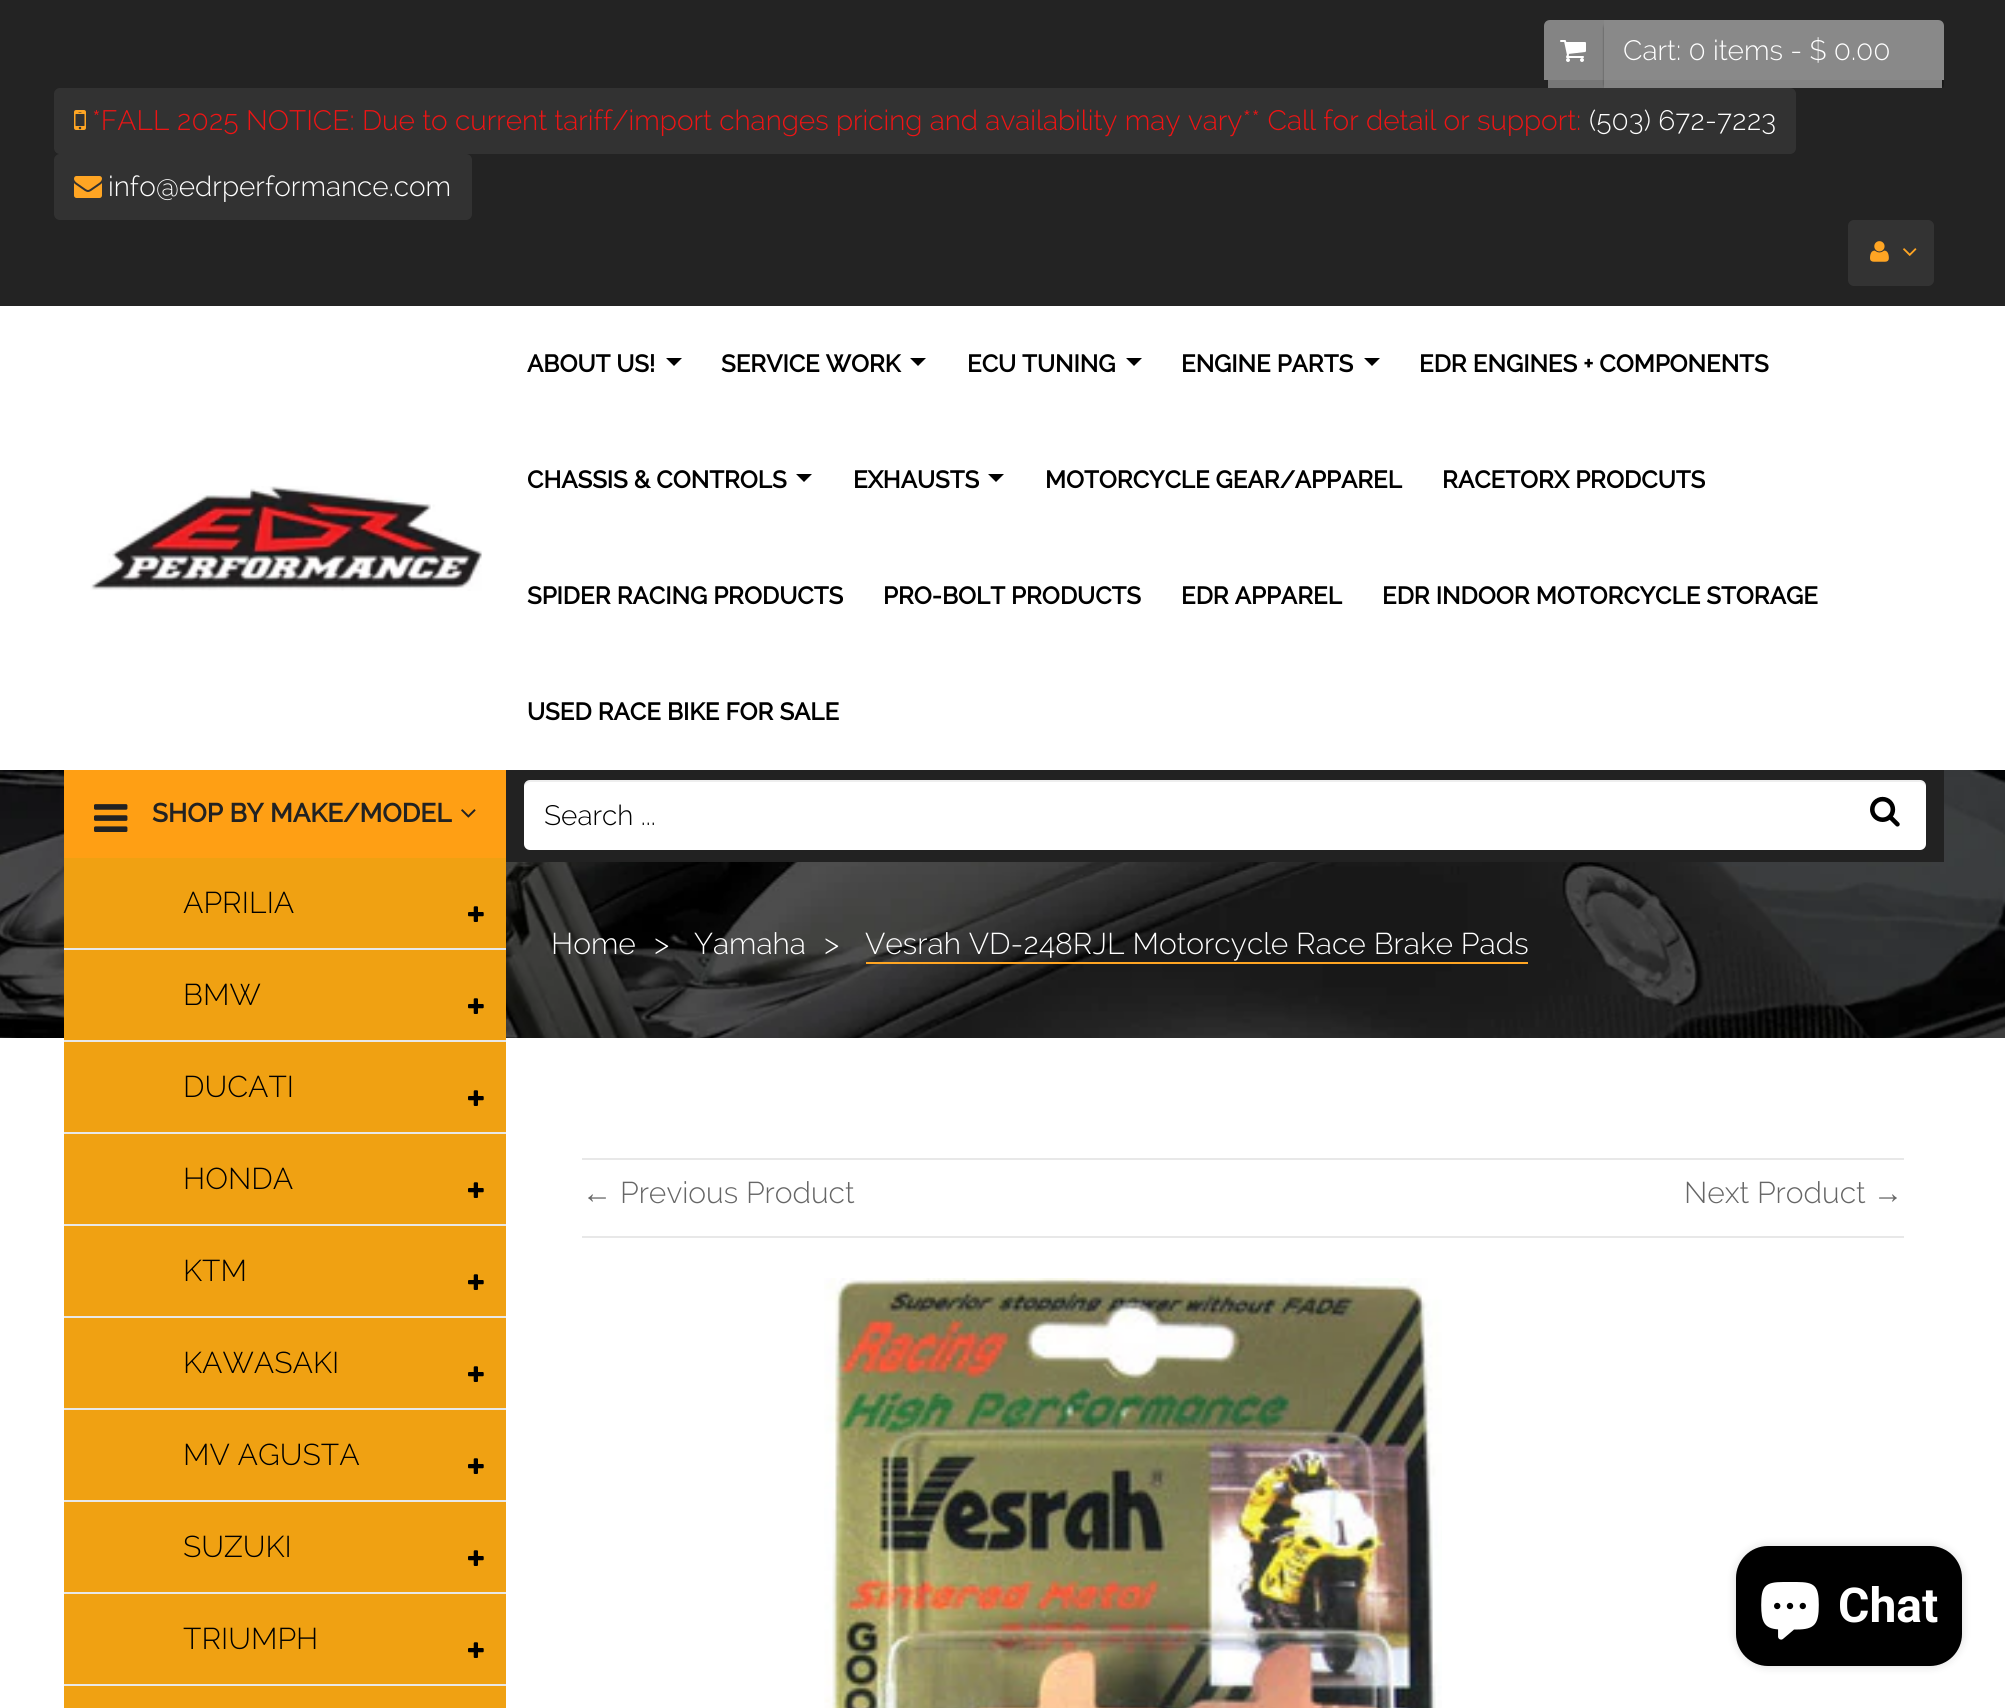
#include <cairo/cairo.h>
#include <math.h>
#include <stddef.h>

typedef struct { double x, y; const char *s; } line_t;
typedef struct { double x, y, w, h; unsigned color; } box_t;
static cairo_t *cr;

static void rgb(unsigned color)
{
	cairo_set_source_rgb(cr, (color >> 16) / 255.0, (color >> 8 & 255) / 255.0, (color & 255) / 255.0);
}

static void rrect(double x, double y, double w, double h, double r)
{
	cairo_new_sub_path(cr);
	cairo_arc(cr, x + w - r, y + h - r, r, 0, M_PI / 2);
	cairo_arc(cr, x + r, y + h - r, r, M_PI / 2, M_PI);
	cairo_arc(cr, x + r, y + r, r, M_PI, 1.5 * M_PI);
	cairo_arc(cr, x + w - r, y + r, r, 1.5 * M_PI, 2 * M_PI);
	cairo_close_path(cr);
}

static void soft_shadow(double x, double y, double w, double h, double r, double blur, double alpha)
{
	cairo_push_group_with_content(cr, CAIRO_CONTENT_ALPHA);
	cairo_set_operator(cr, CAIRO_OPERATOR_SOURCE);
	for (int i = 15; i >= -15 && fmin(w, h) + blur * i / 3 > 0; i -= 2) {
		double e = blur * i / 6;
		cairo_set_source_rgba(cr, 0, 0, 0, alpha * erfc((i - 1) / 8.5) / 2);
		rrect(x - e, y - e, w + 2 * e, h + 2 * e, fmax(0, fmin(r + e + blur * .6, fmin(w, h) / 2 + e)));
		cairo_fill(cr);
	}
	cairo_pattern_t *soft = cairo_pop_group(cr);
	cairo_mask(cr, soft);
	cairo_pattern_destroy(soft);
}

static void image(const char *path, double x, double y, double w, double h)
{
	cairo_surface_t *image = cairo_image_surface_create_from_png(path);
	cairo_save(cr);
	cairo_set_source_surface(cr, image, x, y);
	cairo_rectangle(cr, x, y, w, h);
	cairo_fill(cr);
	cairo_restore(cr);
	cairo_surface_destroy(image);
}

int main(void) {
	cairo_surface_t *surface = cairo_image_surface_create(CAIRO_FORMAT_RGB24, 2005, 1708);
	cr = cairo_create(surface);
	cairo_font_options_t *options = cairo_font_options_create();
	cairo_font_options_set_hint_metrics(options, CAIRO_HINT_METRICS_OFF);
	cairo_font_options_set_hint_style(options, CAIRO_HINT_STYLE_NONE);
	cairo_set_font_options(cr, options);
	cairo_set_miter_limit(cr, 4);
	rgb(0xffffff);
	cairo_paint(cr);
	rgb(0x232323);
	cairo_rectangle(cr, 0, 0, 2005, 306);
	cairo_fill(cr);
	rgb(0x848484);
	cairo_new_path(cr);
	cairo_move_to(cr, 1550, 20);
	cairo_line_to(cr, 1604, 20);
	cairo_line_to(cr, 1604, 80);
	cairo_line_to(cr, 1544, 80);
	cairo_line_to(cr, 1544, 26);
	cairo_curve_to(cr, 1544, 22.5, 1546.5, 20, 1550, 20);
	cairo_close_path(cr);
	cairo_fill(cr);
	rgb(0x777777);
	cairo_rectangle(cr, 1548, 80, 56, 8);
	cairo_fill(cr);
	image("img/1.png", 1560, 40, 26, 22);
	cairo_save(cr);
	cairo_rectangle(cr, 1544, 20, 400, 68);
	cairo_clip(cr);
	rgb(0x000101);
	soft_shadow(1604, 22, 340, 68, 6, 1, 0.4);
	cairo_restore(cr);
	rgb(0x898989);
	cairo_new_path(cr);
	cairo_move_to(cr, 1604, 20);
	cairo_line_to(cr, 1938, 20);
	cairo_curve_to(cr, 1941.5, 20, 1944, 22.5, 1944, 26);
	cairo_line_to(cr, 1944, 80);
	cairo_line_to(cr, 1604, 80);
	cairo_close_path(cr);
	cairo_fill(cr);
	rgb(0x848484);
	cairo_rectangle(cr, 1604, 80, 338, 8);
	cairo_fill(cr);
	rgb(0x323232);
	rrect(54, 88, 1742, 66, 6);
	cairo_fill(cr);
	image("img/2.png", 74, 110, 12, 20);
	rrect(54, 154, 418, 66, 6);
	cairo_fill(cr);
	image("img/3.png", 74, 176, 28, 22);
	rgb(0x333333);
	rrect(1848, 220, 86, 66, 6);
	cairo_fill(cr);
	image("img/4.png", 1870, 241, 19, 21);
	image("img/5.png", 1903, 248, 14, 8);
	image("img/6.png", 90, 486, 392, 105);
	rgb(0x000000);
	cairo_new_path(cr);
	cairo_move_to(cr, 666, 358);
	cairo_line_to(cr, 682, 358);
	cairo_line_to(cr, 674, 366);
	cairo_close_path(cr);
	cairo_fill(cr);
	cairo_new_path(cr);
	cairo_move_to(cr, 910, 358);
	cairo_line_to(cr, 926, 358);
	cairo_line_to(cr, 918, 366);
	cairo_close_path(cr);
	cairo_fill(cr);
	cairo_new_path(cr);
	cairo_move_to(cr, 1126, 358);
	cairo_line_to(cr, 1142, 358);
	cairo_line_to(cr, 1134, 366);
	cairo_close_path(cr);
	cairo_fill(cr);
	cairo_new_path(cr);
	cairo_move_to(cr, 1364, 358);
	cairo_line_to(cr, 1380, 358);
	cairo_line_to(cr, 1372, 366);
	cairo_close_path(cr);
	cairo_fill(cr);
	cairo_new_path(cr);
	cairo_move_to(cr, 796, 474);
	cairo_line_to(cr, 812, 474);
	cairo_line_to(cr, 804, 482);
	cairo_close_path(cr);
	cairo_fill(cr);
	cairo_new_path(cr);
	cairo_move_to(cr, 988, 474);
	cairo_line_to(cr, 1004, 474);
	cairo_line_to(cr, 996, 482);
	cairo_close_path(cr);
	cairo_fill(cr);
	image("img/11.png", 0, 770, 2005, 268);
	rgb(0xff9f14);
	cairo_rectangle(cr, 64, 770, 442, 88);
	cairo_fill(cr);
	image("img/7.png", 94, 804, 34, 28);
	image("img/8.png", 461, 809, 15, 9);
	rgb(0xf0a112);
	cairo_rectangle(cr, 64, 858, 442, 850);
	cairo_fill(cr);
	image("img/9.png", 468, 906, 16, 16);
	rgb(0xe8e8e8);
	cairo_rectangle(cr, 64, 948, 442, 2);
	cairo_fill(cr);
	image("img/9.png", 468, 998, 16, 16);
	cairo_rectangle(cr, 64, 1040, 442, 2);
	cairo_fill(cr);
	image("img/9.png", 468, 1090, 16, 16);
	cairo_rectangle(cr, 64, 1132, 442, 2);
	cairo_fill(cr);
	image("img/9.png", 468, 1182, 16, 16);
	cairo_rectangle(cr, 64, 1224, 442, 2);
	cairo_fill(cr);
	image("img/9.png", 468, 1274, 16, 16);
	cairo_rectangle(cr, 64, 1316, 442, 2);
	cairo_fill(cr);
	image("img/9.png", 468, 1366, 16, 16);
	cairo_rectangle(cr, 64, 1408, 442, 2);
	cairo_fill(cr);
	image("img/9.png", 468, 1458, 16, 16);
	cairo_rectangle(cr, 64, 1500, 442, 2);
	cairo_fill(cr);
	image("img/9.png", 468, 1550, 16, 16);
	cairo_rectangle(cr, 64, 1592, 442, 2);
	cairo_fill(cr);
	image("img/9.png", 468, 1642, 16, 16);
	cairo_rectangle(cr, 64, 1684, 442, 2);
	cairo_fill(cr);
	rgb(0x222222);
	cairo_rectangle(cr, 506, 770, 1438, 92);
	cairo_fill(cr);
	rgb(0xffffff);
	rrect(524, 780, 1402, 70, 6);
	cairo_fill(cr);
	cairo_set_source_rgba(cr, 0, 0, 0, 0.07);
	cairo_new_path(cr);
	cairo_move_to(cr, 530, 782);
	cairo_line_to(cr, 1920, 782);
	cairo_curve_to(cr, 1923, 782, 1926, 785, 1926, 788);
	cairo_curve_to(cr, 1926, 784, 1925, 780, 1920, 780);
	cairo_line_to(cr, 530, 780);
	cairo_curve_to(cr, 525, 780, 524, 784, 524, 788);
	cairo_curve_to(cr, 524, 785, 527, 782, 530, 782);
	cairo_close_path(cr);
	cairo_fill(cr);
	image("img/10.png", 1870, 796, 30, 31);
	{
		static const box_t items[] = {
			{866, 962, 662, 2, 0xffa523},
			{582, 1158, 1322, 2, 0xe8e8e8},
			{582, 1236, 1322, 2, 0xe8e8e8},
		};
		for (size_t i = 0; i < sizeof items / sizeof *items; i++) {
			rgb(items[i].color);
			cairo_rectangle(cr, items[i].x, items[i].y, items[i].w, items[i].h);
			cairo_fill(cr);
		}
	}
	image("img/12.png", 824, 1278, 618, 430);
	rgb(0x000000);
	soft_shadow(1736, 1546, 226, 120, 32, 5, 0.15);
	rgb(0x000000);
	rrect(1736, 1546, 226, 120, 32);
	cairo_fill(cr);
	image("img/13.png", 1761, 1582, 58, 58);
	cairo_select_font_face(cr, "Raleway Light", CAIRO_FONT_SLANT_NORMAL, CAIRO_FONT_WEIGHT_NORMAL);
	cairo_set_font_size(cr, 28);
	rgb(0xffffff);
	cairo_move_to(cr, 1623, 60);
	cairo_show_text(cr, "Cart: 0 items - $ 0.00");
	rgb(0xef1414);
	cairo_move_to(cr, 92, 130);
	cairo_show_text(cr, "*FALL 2025 NOTICE: Due to current tariff/import changes pricing and availability may vary** Call for detail or support:");
	rgb(0xffffff);
	cairo_move_to(cr, 1589, 130);
	cairo_show_text(cr, "(503) 672-7223");
	cairo_move_to(cr, 108, 196);
	cairo_show_text(cr, "info@edrperformance.com");
	cairo_select_font_face(cr, "Raleway", CAIRO_FONT_SLANT_NORMAL, CAIRO_FONT_WEIGHT_BOLD);
	cairo_set_font_size(cr, 24);
	rgb(0x000000);
	{
		static const line_t items[] = {
			{527, 372, "ABOUT US!"},
			{721, 372, "SERVICE WORK"},
			{967, 372, "ECU TUNING"},
			{1181, 372, "ENGINE PARTS"},
			{1419, 372, "EDR ENGINES + COMPONENTS"},
			{527, 488, "CHASSIS & CONTROLS"},
			{853, 488, "EXHAUSTS"},
			{1045, 488, "MOTORCYCLE GEAR/APPAREL"},
			{1442, 488, "RACETORX PRODCUTS"},
			{527, 604, "SPIDER RACING PRODUCTS"},
			{883, 604, "PRO-BOLT PRODUCTS"},
			{1181, 604, "EDR APPAREL"},
			{1382, 604, "EDR INDOOR MOTORCYCLE STORAGE"},
			{527, 720, "USED RACE BIKE FOR SALE"},
		};
		for (size_t i = 0; i < sizeof items / sizeof *items; i++) {
			cairo_move_to(cr, items[i].x, items[i].y);
			cairo_show_text(cr, items[i].s);
		}
	}
	cairo_set_font_size(cr, 26);
	rgb(0x222222);
	cairo_move_to(cr, 152, 822);
	cairo_show_text(cr, "SHOP BY MAKE/MODEL");
	cairo_select_font_face(cr, "Raleway Light", CAIRO_FONT_SLANT_NORMAL, CAIRO_FONT_WEIGHT_NORMAL);
	cairo_set_font_size(cr, 30);
	rgb(0x000000);
	{
		static const line_t items[] = {
			{183, 913, "APRILIA"},
			{183, 1005, "BMW"},
			{183, 1097, "DUCATI"},
			{183, 1189, "HONDA"},
			{183, 1281, "KTM"},
			{183, 1373, "KAWASAKI"},
			{183, 1465, "MV AGUSTA"},
			{183, 1557, "SUZUKI"},
			{183, 1649, "TRIUMPH"},
		};
		for (size_t i = 0; i < sizeof items / sizeof *items; i++) {
			cairo_move_to(cr, items[i].x, items[i].y);
			cairo_show_text(cr, items[i].s);
		}
	}
	cairo_set_font_size(cr, 28);
	cairo_move_to(cr, 544, 825);
	cairo_show_text(cr, "Search ...");
	cairo_set_font_size(cr, 30);
	rgb(0xffffff);
	{
		static const line_t items[] = {
			{551, 954, "Home"},
			{654, 954, ">"},
			{694, 954, "Yamaha"},
			{824, 954, ">"},
			{865, 954, "Vesrah VD-248RJL Motorcycle Race Brake Pads"},
		};
		for (size_t i = 0; i < sizeof items / sizeof *items; i++) {
			cairo_move_to(cr, items[i].x, items[i].y);
			cairo_show_text(cr, items[i].s);
		}
	}
	cairo_select_font_face(cr, "Liberation Serif", CAIRO_FONT_SLANT_NORMAL, CAIRO_FONT_WEIGHT_NORMAL);
	rgb(0x666666);
	cairo_move_to(cr, 582, 1203);
	cairo_show_text(cr, "←");
	cairo_select_font_face(cr, "Raleway Light", CAIRO_FONT_SLANT_NORMAL, CAIRO_FONT_WEIGHT_NORMAL);
	cairo_move_to(cr, 620, 1203);
	cairo_show_text(cr, "Previous Product");
	cairo_move_to(cr, 1684, 1203);
	cairo_show_text(cr, "Next Product");
	cairo_select_font_face(cr, "Liberation Serif", CAIRO_FONT_SLANT_NORMAL, CAIRO_FONT_WEIGHT_NORMAL);
	cairo_move_to(cr, 1873, 1203);
	cairo_show_text(cr, "→");
	cairo_select_font_face(cr, "Roboto", CAIRO_FONT_SLANT_NORMAL, CAIRO_FONT_WEIGHT_BOLD);
	cairo_set_font_size(cr, 48);
	rgb(0xffffff);
	cairo_move_to(cr, 1838, 1622);
	cairo_show_text(cr, "Chat");
	cairo_surface_write_to_png(surface, "page.png");
	cairo_font_options_destroy(options);
	cairo_destroy(cr);
	cairo_surface_destroy(surface);
	return 0;
}
